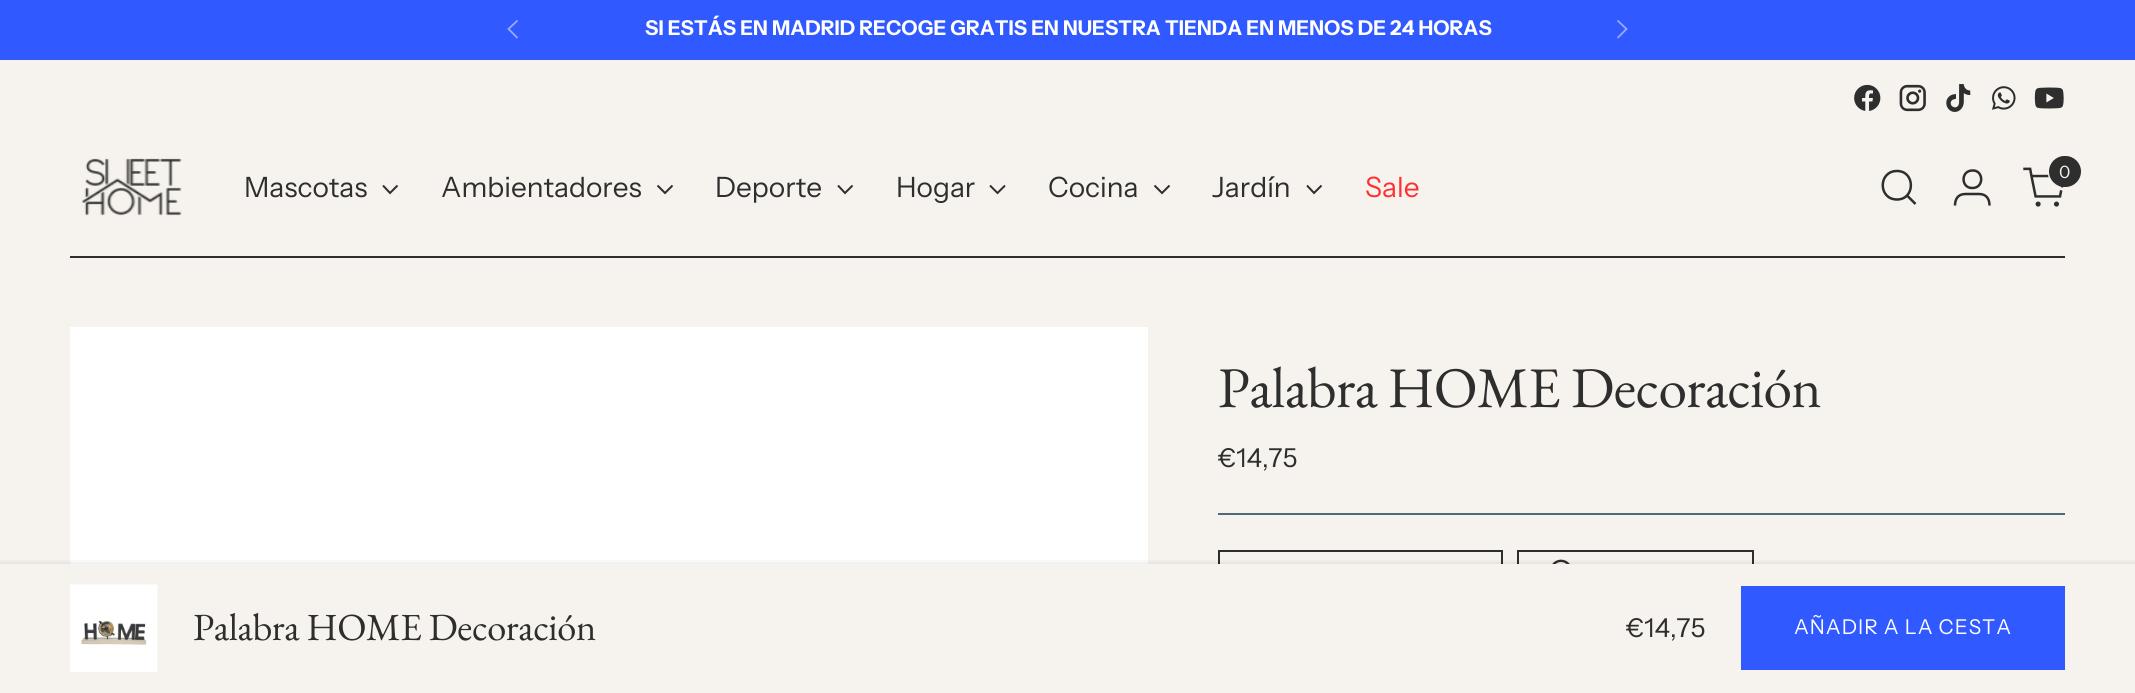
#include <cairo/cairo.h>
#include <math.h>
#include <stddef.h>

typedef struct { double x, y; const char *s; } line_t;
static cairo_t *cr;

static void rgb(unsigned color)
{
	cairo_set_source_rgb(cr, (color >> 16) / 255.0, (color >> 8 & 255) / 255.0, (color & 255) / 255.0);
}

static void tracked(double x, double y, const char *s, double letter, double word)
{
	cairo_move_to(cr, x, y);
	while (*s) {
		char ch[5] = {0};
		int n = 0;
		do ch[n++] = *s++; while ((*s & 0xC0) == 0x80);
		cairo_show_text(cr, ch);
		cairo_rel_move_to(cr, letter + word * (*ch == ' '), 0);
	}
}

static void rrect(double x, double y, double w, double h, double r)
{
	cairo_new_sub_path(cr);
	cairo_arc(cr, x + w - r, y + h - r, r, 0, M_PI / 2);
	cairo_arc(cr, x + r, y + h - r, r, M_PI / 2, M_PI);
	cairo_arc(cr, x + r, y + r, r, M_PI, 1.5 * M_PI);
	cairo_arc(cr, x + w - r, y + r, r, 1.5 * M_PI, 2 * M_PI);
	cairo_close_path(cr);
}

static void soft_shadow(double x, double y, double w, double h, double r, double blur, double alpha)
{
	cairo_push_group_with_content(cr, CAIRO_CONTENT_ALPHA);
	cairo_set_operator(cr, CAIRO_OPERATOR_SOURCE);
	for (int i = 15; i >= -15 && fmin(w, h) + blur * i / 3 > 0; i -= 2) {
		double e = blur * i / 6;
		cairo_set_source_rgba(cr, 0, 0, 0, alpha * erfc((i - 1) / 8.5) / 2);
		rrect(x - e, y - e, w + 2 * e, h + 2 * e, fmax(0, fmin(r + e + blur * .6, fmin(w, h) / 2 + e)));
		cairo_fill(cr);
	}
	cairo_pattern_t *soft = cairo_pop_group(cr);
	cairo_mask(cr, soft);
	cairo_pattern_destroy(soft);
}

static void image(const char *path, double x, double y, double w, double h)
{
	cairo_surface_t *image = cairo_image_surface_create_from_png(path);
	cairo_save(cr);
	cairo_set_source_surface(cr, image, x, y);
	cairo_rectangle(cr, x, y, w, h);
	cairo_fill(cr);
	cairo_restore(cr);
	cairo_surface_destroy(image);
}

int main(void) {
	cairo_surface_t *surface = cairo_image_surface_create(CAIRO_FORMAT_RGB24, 2135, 693);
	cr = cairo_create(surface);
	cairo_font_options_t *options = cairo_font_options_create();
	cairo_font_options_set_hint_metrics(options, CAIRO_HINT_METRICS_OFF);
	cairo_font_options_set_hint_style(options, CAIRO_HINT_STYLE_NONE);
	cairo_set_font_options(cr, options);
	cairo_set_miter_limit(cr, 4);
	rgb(0xf6f3ee);
	cairo_paint(cr);
	rgb(0x3059ff);
	cairo_rectangle(cr, 0, 0, 2135, 60);
	cairo_fill(cr);
	cairo_new_path(cr);
	cairo_move_to(cr, 517.5, 20.5);
	cairo_line_to(cr, 508.5, 29);
	cairo_line_to(cr, 517.5, 38);
	rgb(0x98acff);
	cairo_set_line_width(cr, 1.8);
	cairo_stroke(cr);
	cairo_new_path(cr);
	cairo_move_to(cr, 1617.5, 38);
	cairo_line_to(cr, 1626.5, 29);
	cairo_line_to(cr, 1617.5, 20.5);
	cairo_stroke(cr);
	rgb(0x2e2e2e);
	cairo_rectangle(cr, 70, 256, 1995, 2);
	cairo_fill(cr);
	image("img/1.png", 1854, 84, 27, 27);
	image("img/2.png", 1899, 84, 27, 28);
	image("img/3.png", 1946, 84, 25, 28);
	image("img/4.png", 1992, 86, 24, 24);
	image("img/5.png", 2034, 87, 30, 22);
	cairo_new_path(cr);
	cairo_move_to(cr, 1897, 199.5);
	cairo_curve_to(cr, 1915.5, 199.5, 1915.5, 171, 1897, 171);
	cairo_curve_to(cr, 1878, 171, 1878, 199.5, 1897, 199.5);
	cairo_close_path(cr);
	cairo_set_line_width(cr, 2.5);
	cairo_set_line_cap(cr, CAIRO_LINE_CAP_ROUND);
	cairo_stroke(cr);
	cairo_new_path(cr);
	cairo_move_to(cr, 1907, 195.5);
	cairo_line_to(cr, 1915.5, 204);
	cairo_set_line_cap(cr, CAIRO_LINE_CAP_BUTT);
	cairo_stroke(cr);
	cairo_new_path(cr);
	cairo_move_to(cr, 1972, 188);
	cairo_curve_to(cr, 1984.5, 188.5, 1984, 169.5, 1972, 170.5);
	cairo_curve_to(cr, 1960.5, 171, 1961, 188, 1972, 188);
	cairo_close_path(cr);
	cairo_move_to(cr, 1955, 205.5);
	cairo_curve_to(cr, 1955, 199, 1958, 194, 1965.5, 194);
	cairo_line_to(cr, 1979, 194);
	cairo_curve_to(cr, 1986.5, 194, 1989.5, 199, 1989.5, 205.5);
	cairo_stroke(cr);
	image("img/6.png", 2023, 167, 41, 40);
	rrect(2049.5, 155.5, 33, 34, 16.5);
	rgb(0xf6f3ee);
	cairo_set_line_width(cr, 3);
	cairo_stroke(cr);
	rgb(0x2e2e2e);
	rrect(2049, 156, 32, 31, 15.5);
	cairo_fill(cr);
	image("img/7.png", 82, 158, 100, 58);
	cairo_new_path(cr);
	cairo_move_to(cr, 383, 185.5);
	cairo_line_to(cr, 390, 193);
	cairo_line_to(cr, 397.5, 185.5);
	cairo_set_line_width(cr, 2);
	cairo_stroke(cr);
	cairo_new_path(cr);
	cairo_move_to(cr, 657.5, 185.5);
	cairo_line_to(cr, 665, 193);
	cairo_line_to(cr, 672.5, 185.5);
	cairo_stroke(cr);
	cairo_new_path(cr);
	cairo_move_to(cr, 838, 185.5);
	cairo_line_to(cr, 845, 193);
	cairo_line_to(cr, 852.5, 185.5);
	cairo_stroke(cr);
	cairo_new_path(cr);
	cairo_move_to(cr, 990, 185.5);
	cairo_line_to(cr, 997.5, 193);
	cairo_line_to(cr, 1005, 185.5);
	cairo_stroke(cr);
	cairo_new_path(cr);
	cairo_move_to(cr, 1154.5, 185.5);
	cairo_line_to(cr, 1162, 193);
	cairo_line_to(cr, 1169.5, 185.5);
	cairo_stroke(cr);
	cairo_new_path(cr);
	cairo_move_to(cr, 1307, 185.5);
	cairo_line_to(cr, 1314, 193);
	cairo_line_to(cr, 1321.5, 185.5);
	cairo_stroke(cr);
	rgb(0xffffff);
	cairo_rectangle(cr, 70, 327, 1078, 237);
	cairo_fill(cr);
	rgb(0x4c6a78);
	cairo_rectangle(cr, 1218, 513, 847, 2);
	cairo_fill(cr);
	cairo_rectangle(cr, 1219, 551, 283, 64);
	rgb(0x2e2e2e);
	cairo_stroke(cr);
	cairo_rectangle(cr, 1518, 551, 235, 64);
	cairo_stroke(cr);
	image("img/8.png", 1552, 559, 18, 5);
	rgb(0xf6f3ee);
	cairo_rectangle(cr, 1218, 564, 536, 52);
	cairo_fill(cr);
	image("img/9.png", 70, 584, 88, 88);
	cairo_save(cr);
	cairo_rectangle(cr, 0, 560, 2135, 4);
	cairo_clip(cr);
	rgb(0x000000);
	soft_shadow(0, 564, 2135, 129, 0, 3.5, 0.15);
	cairo_restore(cr);
	cairo_save(cr);
	cairo_rectangle(cr, 1741, 586, 324, 84);
	cairo_clip(cr);
	rgb(0x3059ff);
	cairo_new_path(cr);
	cairo_move_to(cr, 1653, 586);
	cairo_line_to(cr, 2105, 586);
	cairo_line_to(cr, 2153, 670);
	cairo_line_to(cr, 1701, 670);
	cairo_close_path(cr);
	cairo_fill(cr);
	cairo_restore(cr);
	cairo_select_font_face(cr, "Instrument Sans", CAIRO_FONT_SLANT_NORMAL, CAIRO_FONT_WEIGHT_BOLD);
	cairo_set_font_size(cr, 20.4);
	rgb(0xffffff);
	tracked(645, 35, "SI ESTÁS EN MADRID RECOGE GRATIS EN NUESTRA TIENDA EN MENOS DE 24 HORAS", 0.1, 0);
	cairo_select_font_face(cr, "Instrument Sans", CAIRO_FONT_SLANT_NORMAL, CAIRO_FONT_WEIGHT_NORMAL);
	cairo_set_font_size(cr, 17);
	rgb(0xf6f3ee);
	cairo_move_to(cr, 2059, 178);
	cairo_show_text(cr, "0");
	cairo_set_font_size(cr, 28);
	rgb(0x2e2e2e);
	{
		static const line_t items[] = {
			{244, 197, "Mascotas"},
			{441, 197, "Ambientadores"},
			{715, 197, "Deporte"},
			{896, 197, "Hogar"},
			{1048, 197, "Cocina"},
			{1212, 197, "Jardín"},
		};
		for (size_t i = 0; i < sizeof items / sizeof *items; i++) {
			cairo_move_to(cr, items[i].x, items[i].y);
			cairo_show_text(cr, items[i].s);
		}
	}
	rgb(0xff3030);
	cairo_move_to(cr, 1365, 197);
	cairo_show_text(cr, "Sale");
	cairo_select_font_face(cr, "EB Garamond", CAIRO_FONT_SLANT_NORMAL, CAIRO_FONT_WEIGHT_NORMAL);
	cairo_set_font_size(cr, 57.5);
	rgb(0x2e2e2e);
	tracked(1218, 407, "Palabra HOME Decoración", -0.6, 0);
	cairo_select_font_face(cr, "Instrument Sans", CAIRO_FONT_SLANT_NORMAL, CAIRO_FONT_WEIGHT_NORMAL);
	cairo_set_font_size(cr, 26);
	cairo_move_to(cr, 1218, 467);
	cairo_show_text(cr, "€14,75");
	cairo_select_font_face(cr, "EB Garamond", CAIRO_FONT_SLANT_NORMAL, CAIRO_FONT_WEIGHT_NORMAL);
	cairo_set_font_size(cr, 38.4);
	tracked(193, 640, "Palabra HOME Decoración", -0.4, 0);
	cairo_select_font_face(cr, "Instrument Sans", CAIRO_FONT_SLANT_NORMAL, CAIRO_FONT_WEIGHT_NORMAL);
	cairo_set_font_size(cr, 26);
	cairo_move_to(cr, 1626, 637);
	cairo_show_text(cr, "€14,75");
	cairo_set_font_size(cr, 20.4);
	rgb(0xffffff);
	tracked(1794, 634, "AÑADIR A LA CESTA", 1, 0);
	cairo_surface_write_to_png(surface, "page.png");
	cairo_font_options_destroy(options);
	cairo_destroy(cr);
	cairo_surface_destroy(surface);
	return 0;
}
